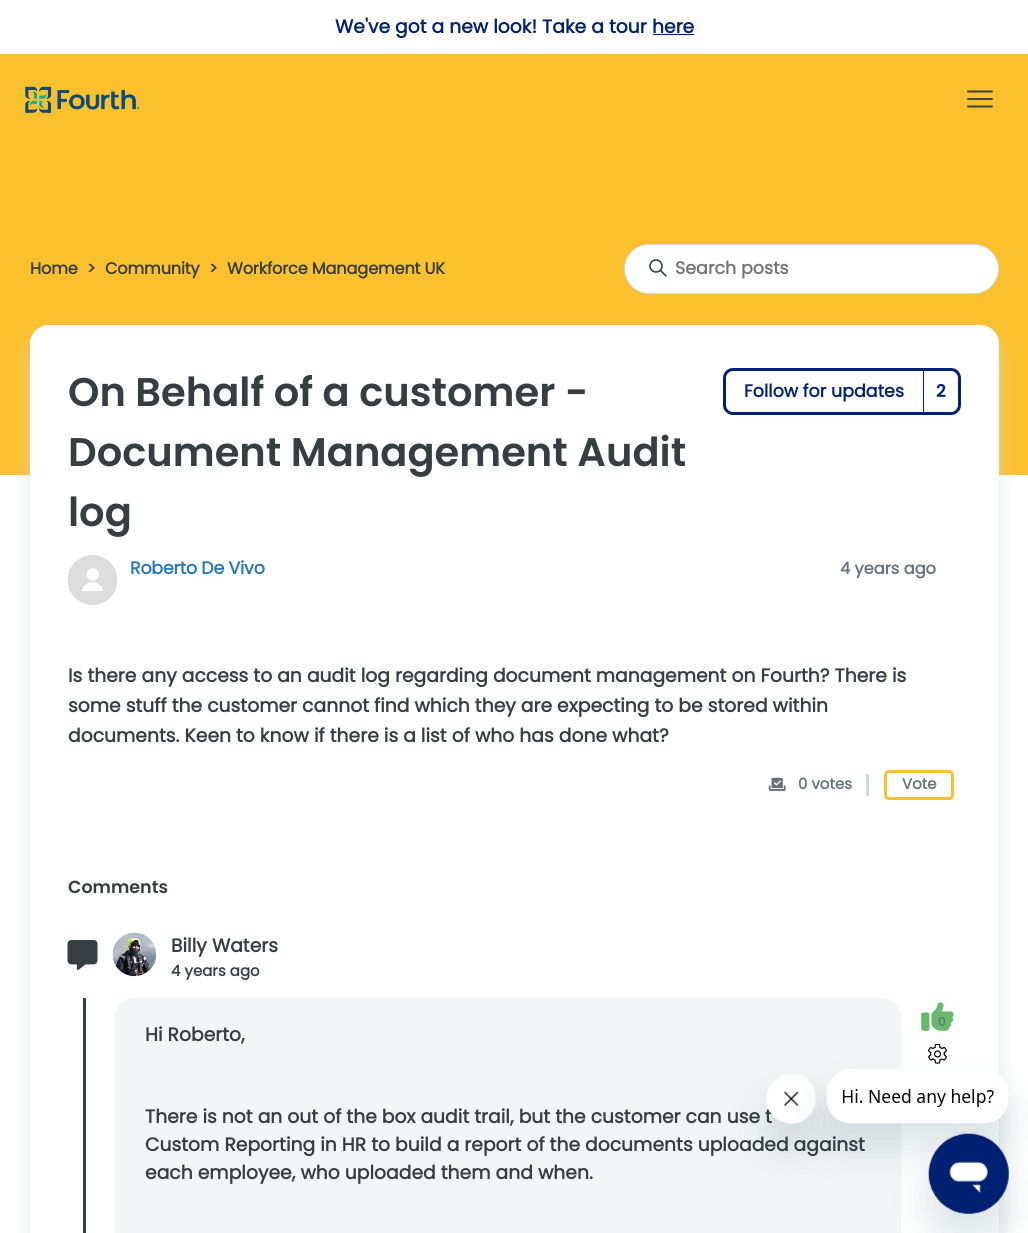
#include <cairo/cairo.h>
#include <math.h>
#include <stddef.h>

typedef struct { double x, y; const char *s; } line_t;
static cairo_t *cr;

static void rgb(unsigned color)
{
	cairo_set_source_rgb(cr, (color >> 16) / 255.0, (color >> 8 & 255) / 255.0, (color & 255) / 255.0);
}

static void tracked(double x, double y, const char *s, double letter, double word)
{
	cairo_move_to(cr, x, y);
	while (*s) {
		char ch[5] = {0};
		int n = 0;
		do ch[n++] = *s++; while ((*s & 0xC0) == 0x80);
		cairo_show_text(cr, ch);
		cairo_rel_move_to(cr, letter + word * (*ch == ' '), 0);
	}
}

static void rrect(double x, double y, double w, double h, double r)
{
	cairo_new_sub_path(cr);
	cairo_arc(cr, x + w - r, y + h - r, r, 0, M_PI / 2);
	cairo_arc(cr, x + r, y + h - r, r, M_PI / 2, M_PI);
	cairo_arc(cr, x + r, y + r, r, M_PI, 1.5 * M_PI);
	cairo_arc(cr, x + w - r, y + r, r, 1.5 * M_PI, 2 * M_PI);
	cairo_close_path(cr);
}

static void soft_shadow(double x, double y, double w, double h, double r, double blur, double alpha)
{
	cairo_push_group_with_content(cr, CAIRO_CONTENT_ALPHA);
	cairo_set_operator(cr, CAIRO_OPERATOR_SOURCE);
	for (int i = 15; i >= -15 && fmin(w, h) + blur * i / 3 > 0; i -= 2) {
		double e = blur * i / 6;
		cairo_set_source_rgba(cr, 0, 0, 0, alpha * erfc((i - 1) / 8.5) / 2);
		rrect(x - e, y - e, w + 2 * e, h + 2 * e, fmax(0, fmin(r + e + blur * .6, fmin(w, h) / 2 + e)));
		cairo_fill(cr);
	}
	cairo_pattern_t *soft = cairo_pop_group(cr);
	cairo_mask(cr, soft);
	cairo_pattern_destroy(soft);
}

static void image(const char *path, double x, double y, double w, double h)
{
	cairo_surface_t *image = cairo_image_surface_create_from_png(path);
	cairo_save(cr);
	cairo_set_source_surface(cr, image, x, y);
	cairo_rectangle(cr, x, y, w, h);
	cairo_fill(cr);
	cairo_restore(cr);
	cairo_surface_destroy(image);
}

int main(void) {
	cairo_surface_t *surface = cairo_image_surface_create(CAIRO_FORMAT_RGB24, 1028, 1233);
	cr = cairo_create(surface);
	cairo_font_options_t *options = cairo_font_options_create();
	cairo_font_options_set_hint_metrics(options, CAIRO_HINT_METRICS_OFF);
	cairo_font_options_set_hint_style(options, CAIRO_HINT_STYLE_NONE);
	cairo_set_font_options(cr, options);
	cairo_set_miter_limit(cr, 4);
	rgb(0xffffff);
	cairo_paint(cr);
	rgb(0x002071);
	cairo_rectangle(cr, 653, 34, 41, 1);
	cairo_fill(cr);
	rgb(0xfbc02d);
	cairo_rectangle(cr, 0, 54, 1028, 421);
	cairo_fill(cr);
	image("img/1.png", 25, 86, 115, 27);
	cairo_new_path(cr);
	cairo_move_to(cr, 968, 91.5);
	cairo_line_to(cr, 992, 91.5);
	cairo_move_to(cr, 968, 99);
	cairo_line_to(cr, 992, 99);
	cairo_move_to(cr, 968, 106.5);
	cairo_line_to(cr, 992, 106.5);
	rgb(0x373e42);
	cairo_set_line_width(cr, 1.9);
	cairo_set_line_cap(cr, CAIRO_LINE_CAP_ROUND);
	cairo_stroke(cr);
	rgb(0xffffff);
	rrect(624.5, 244.5, 374, 49, 24.5);
	cairo_fill_preserve(cr);
	rgb(0xcfd8dc);
	cairo_set_line_width(cr, 1);
	cairo_set_line_cap(cr, CAIRO_LINE_CAP_BUTT);
	cairo_stroke(cr);
	image("img/2.png", 649, 259, 18, 18);
	rgb(0xcfd8dc);
	soft_shadow(34, 341, 961, 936, 15, 9.5, 1);
	rgb(0xffffff);
	rrect(30, 325, 969, 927, 19);
	cairo_fill(cr);
	rrect(724.5, 369.5, 235, 44, 8.5);
	rgb(0x002071);
	cairo_set_line_width(cr, 3);
	cairo_stroke(cr);
	cairo_rectangle(cr, 923, 370, 1, 43);
	cairo_fill(cr);
	image("img/3.png", 67, 555, 51, 50);
	rgb(0xcfd8dc);
	cairo_rectangle(cr, 866, 774, 3, 22);
	cairo_fill(cr);
	image("img/4.png", 768, 777, 18, 14);
	rrect(885.5, 771.5, 67, 27, 3.5);
	rgb(0xfbc02d);
	cairo_stroke(cr);
	image("img/5.png", 67, 940, 31, 30);
	image("img/6.png", 112, 932, 45, 45);
	image("img/7.png", 921, 1002, 33, 29);
	rgb(0x373e42);
	cairo_rectangle(cr, 83, 998, 3, 235);
	cairo_fill(cr);
	rgb(0xf3f5f6);
	rrect(115, 998, 786, 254, 19);
	cairo_fill(cr);
	image("img/8.png", 928, 1044, 19, 20);
	rgb(0x17494d);
	soft_shadow(766, 1099, 50, 50, 25, 19, 0.15);
	cairo_select_font_face(cr, "Poppins", CAIRO_FONT_SLANT_NORMAL, CAIRO_FONT_WEIGHT_BOLD);
	cairo_set_font_size(cr, 18.75);
	rgb(0x002071);
	cairo_move_to(cr, 335, 33);
	cairo_show_text(cr, "We've got a new look! Take a tour");
	cairo_move_to(cr, 652, 33);
	cairo_show_text(cr, "here");
	cairo_set_font_size(cr, 16.25);
	rgb(0x373e42);
	tracked(30, 274, "Home", -0.2, 0);
	cairo_move_to(cr, 87, 274);
	cairo_show_text(cr, ">");
	tracked(105, 274, "Community", -0.2, 0);
	cairo_move_to(cr, 209, 274);
	cairo_show_text(cr, ">");
	tracked(227, 274, "Workforce Management UK", -0.2, 0);
	cairo_set_font_size(cr, 17.5);
	rgb(0x757575);
	cairo_move_to(cr, 675, 274);
	cairo_show_text(cr, "Search posts");
	cairo_select_font_face(cr, "Poppins SemiBold", CAIRO_FONT_SLANT_NORMAL, CAIRO_FONT_WEIGHT_NORMAL);
	cairo_set_font_size(cr, 40);
	rgb(0x373e42);
	{
		static const line_t items[] = {
			{68, 406, "On Behalf of a customer -"},
			{68, 466, "Document Management Audit"},
			{68, 526, "log"},
		};
		for (size_t i = 0; i < sizeof items / sizeof *items; i++) {
			cairo_move_to(cr, items[i].x, items[i].y);
			cairo_show_text(cr, items[i].s);
		}
	}
	cairo_select_font_face(cr, "Poppins", CAIRO_FONT_SLANT_NORMAL, CAIRO_FONT_WEIGHT_BOLD);
	cairo_set_font_size(cr, 17.5);
	rgb(0x002071);
	cairo_move_to(cr, 744, 397);
	cairo_show_text(cr, "Follow for updates");
	cairo_select_font_face(cr, "Poppins SemiBold", CAIRO_FONT_SLANT_NORMAL, CAIRO_FONT_WEIGHT_NORMAL);
	cairo_move_to(cr, 936, 397);
	cairo_show_text(cr, "2");
	cairo_select_font_face(cr, "Poppins", CAIRO_FONT_SLANT_NORMAL, CAIRO_FONT_WEIGHT_BOLD);
	rgb(0x2676b9);
	tracked(130, 574, "Roberto De Vivo", -0.25, 0);
	cairo_set_font_size(cr, 16.25);
	rgb(0x65727a);
	cairo_move_to(cr, 840, 574);
	cairo_show_text(cr, "4 years ago");
	cairo_set_font_size(cr, 18.75);
	rgb(0x373e42);
	{
		static const line_t items[] = {
			{68, 682, "Is there any access to an audit log regarding document management on Fourth? There is"},
			{68, 712, "some stuff the customer cannot find which they are expecting to be stored within"},
			{68, 742, "documents. Keen to know if there is a list of who has done what?"},
		};
		for (size_t i = 0; i < sizeof items / sizeof *items; i++) {
			cairo_move_to(cr, items[i].x, items[i].y);
			cairo_show_text(cr, items[i].s);
		}
	}
	cairo_set_font_size(cr, 15);
	rgb(0x65727a);
	cairo_move_to(cr, 798, 789);
	cairo_show_text(cr, "0 votes");
	cairo_move_to(cr, 902, 789);
	cairo_show_text(cr, "Vote");
	cairo_select_font_face(cr, "Poppins SemiBold", CAIRO_FONT_SLANT_NORMAL, CAIRO_FONT_WEIGHT_NORMAL);
	cairo_set_font_size(cr, 17.5);
	rgb(0x373e42);
	cairo_move_to(cr, 68, 893);
	cairo_show_text(cr, "Comments");
	cairo_select_font_face(cr, "Poppins", CAIRO_FONT_SLANT_NORMAL, CAIRO_FONT_WEIGHT_BOLD);
	cairo_set_font_size(cr, 18.75);
	cairo_move_to(cr, 171, 952);
	cairo_show_text(cr, "Billy Waters");
	cairo_set_font_size(cr, 15);
	cairo_move_to(cr, 171, 976);
	cairo_show_text(cr, "4 years ago");
	cairo_set_font_size(cr, 12);
	rgb(0x65727a);
	cairo_move_to(cr, 938, 1026);
	cairo_show_text(cr, "0");
	cairo_set_font_size(cr, 18.75);
	rgb(0x373e42);
	{
		static const line_t items[] = {
			{145, 1041, "Hi Roberto,"},
			{145, 1123, "There is not an out of the box audit trail, but the customer can use t"},
			{145, 1151, "Custom Reporting in HR to build a report of the documents uploaded against"},
			{145, 1179, "each employee, who uploaded them and when."},
		};
		for (size_t i = 0; i < sizeof items / sizeof *items; i++) {
			cairo_move_to(cr, items[i].x, items[i].y);
			cairo_show_text(cr, items[i].s);
		}
	}
	image("img/10.png", 766, 1074, 50, 50);
	rgb(0x17494d);
	soft_shadow(826, 1094, 183, 55, 25, 19, 0.15);
	image("img/9.png", 826, 1069, 182, 55);
	soft_shadow(929, 1159, 80, 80, 40, 19, 0.15);
	image("img/11.png", 928, 1133, 81, 81);
	cairo_surface_write_to_png(surface, "page.png");
	cairo_font_options_destroy(options);
	cairo_destroy(cr);
	cairo_surface_destroy(surface);
	return 0;
}
